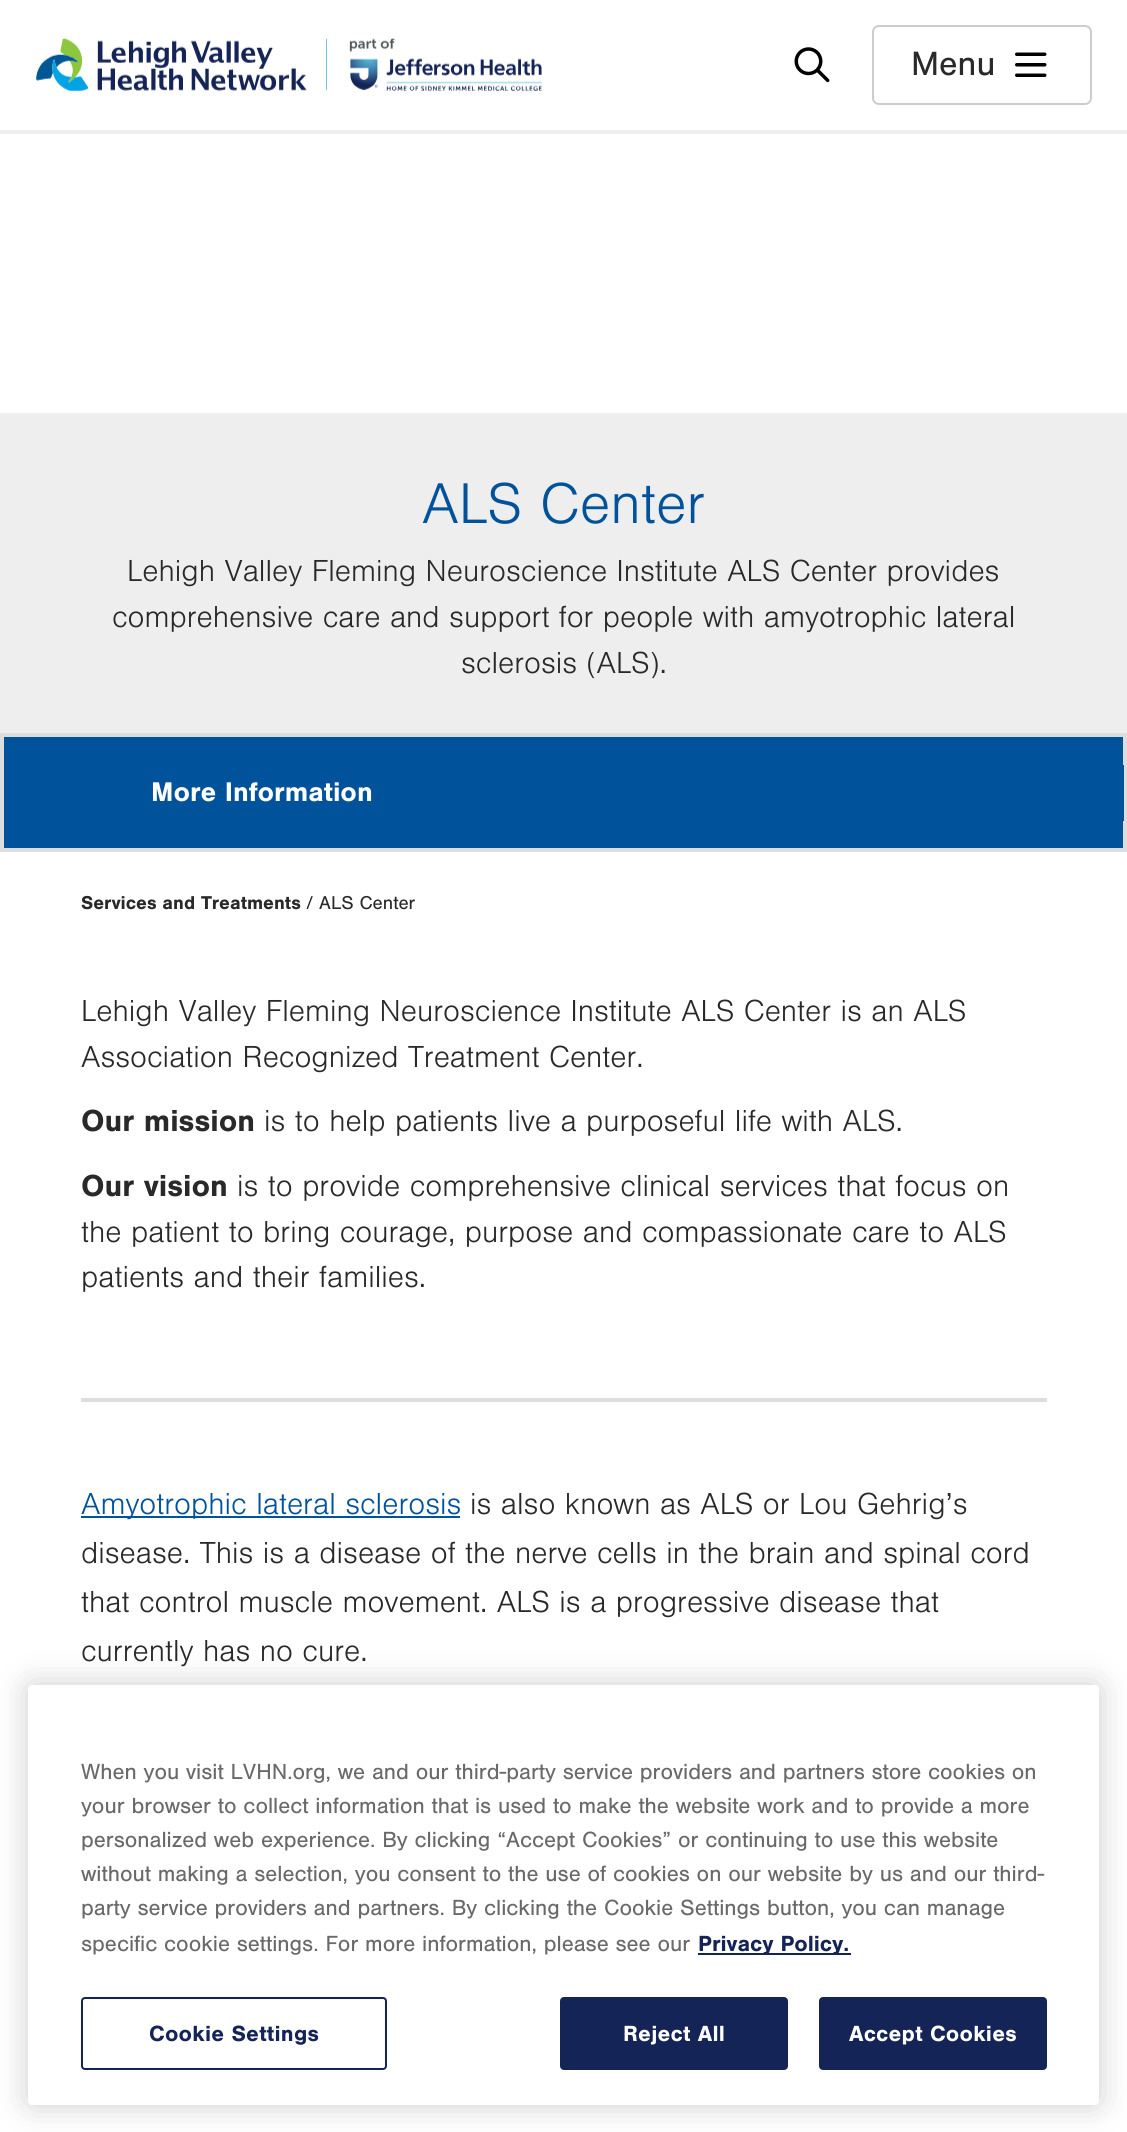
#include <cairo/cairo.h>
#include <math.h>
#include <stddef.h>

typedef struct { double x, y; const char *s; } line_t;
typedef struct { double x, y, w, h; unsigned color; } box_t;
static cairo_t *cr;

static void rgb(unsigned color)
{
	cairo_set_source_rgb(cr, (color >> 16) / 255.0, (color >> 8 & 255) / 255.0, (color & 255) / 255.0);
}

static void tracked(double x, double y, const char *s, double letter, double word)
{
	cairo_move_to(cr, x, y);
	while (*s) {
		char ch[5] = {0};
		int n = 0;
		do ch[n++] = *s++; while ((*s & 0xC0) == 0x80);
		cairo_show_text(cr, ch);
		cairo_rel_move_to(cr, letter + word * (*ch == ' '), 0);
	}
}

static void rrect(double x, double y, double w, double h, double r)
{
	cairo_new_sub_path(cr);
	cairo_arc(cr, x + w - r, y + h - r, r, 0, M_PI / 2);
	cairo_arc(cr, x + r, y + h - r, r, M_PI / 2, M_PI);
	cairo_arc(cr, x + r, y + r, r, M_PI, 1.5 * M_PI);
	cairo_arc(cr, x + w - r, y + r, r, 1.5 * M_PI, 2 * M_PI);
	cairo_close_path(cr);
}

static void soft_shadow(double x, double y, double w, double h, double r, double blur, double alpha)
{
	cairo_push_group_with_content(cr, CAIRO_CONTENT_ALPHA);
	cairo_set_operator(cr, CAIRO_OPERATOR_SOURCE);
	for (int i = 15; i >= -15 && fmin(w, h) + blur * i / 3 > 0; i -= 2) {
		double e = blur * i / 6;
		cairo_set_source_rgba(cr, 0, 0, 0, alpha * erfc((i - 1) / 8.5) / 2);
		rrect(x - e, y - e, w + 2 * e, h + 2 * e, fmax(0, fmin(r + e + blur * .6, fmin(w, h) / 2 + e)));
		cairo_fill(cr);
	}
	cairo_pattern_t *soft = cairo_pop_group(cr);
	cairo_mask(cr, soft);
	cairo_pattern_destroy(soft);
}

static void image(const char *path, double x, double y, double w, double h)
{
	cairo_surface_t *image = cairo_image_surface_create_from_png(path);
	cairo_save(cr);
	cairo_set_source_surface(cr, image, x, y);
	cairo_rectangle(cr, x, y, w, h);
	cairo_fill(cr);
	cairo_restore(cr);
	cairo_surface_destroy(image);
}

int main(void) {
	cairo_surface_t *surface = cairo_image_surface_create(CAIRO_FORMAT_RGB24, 1127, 2132);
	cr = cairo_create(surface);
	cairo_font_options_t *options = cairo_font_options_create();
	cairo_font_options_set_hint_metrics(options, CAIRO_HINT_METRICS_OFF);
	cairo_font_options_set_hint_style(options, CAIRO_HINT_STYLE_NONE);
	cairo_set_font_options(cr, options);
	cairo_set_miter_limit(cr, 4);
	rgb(0xffffff);
	cairo_paint(cr);
	rgb(0xeeeeee);
	cairo_rectangle(cr, 0, 130, 1127, 4);
	cairo_fill(cr);
	image("img/1.png", 36, 38, 506, 53);
	image("img/2.png", 794, 47, 36, 36);
	rrect(873, 26, 218, 78, 6);
	rgb(0xcccccc);
	cairo_stroke(cr);
	image("img/3.png", 1015, 52, 32, 25);
	rgb(0xeeeeee);
	cairo_rectangle(cr, 0, 413, 1127, 320);
	cairo_fill(cr);
	rgb(0x00529a);
	cairo_rectangle(cr, 2, 735, 1123, 115);
	cairo_fill_preserve(cr);
	rgb(0xdddddd);
	cairo_set_line_width(cr, 4);
	cairo_stroke(cr);
	{
		static const box_t items[] = {
			{1123, 765, 1, 56, 0x00529a},
			{81, 1398, 966, 4, 0xdddddd},
			{81, 1516, 379, 2, 0x00529a},
		};
		for (size_t i = 0; i < sizeof items / sizeof *items; i++) {
			rgb(items[i].color);
			cairo_rectangle(cr, items[i].x, items[i].y, items[i].w, items[i].h);
			cairo_fill(cr);
		}
	}
	rgb(0x000000);
	soft_shadow(28, 1685, 1071, 420, 4, 16, 0.2);
	rgb(0xffffff);
	rrect(28, 1685, 1071, 420, 4);
	cairo_fill(cr);
	rgb(0x152456);
	cairo_rectangle(cr, 698, 1953, 153, 2);
	cairo_fill(cr);
	rrect(82, 1998, 304, 71, 3);
	cairo_set_line_width(cr, 2);
	cairo_stroke(cr);
	rrect(561, 1998, 226, 71, 3);
	cairo_fill_preserve(cr);
	cairo_stroke(cr);
	rrect(820, 1998, 226, 71, 3);
	cairo_fill_preserve(cr);
	cairo_stroke(cr);
	cairo_select_font_face(cr, "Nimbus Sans", CAIRO_FONT_SLANT_NORMAL, CAIRO_FONT_WEIGHT_NORMAL);
	cairo_set_font_size(cr, 35);
	rgb(0x292929);
	cairo_move_to(cr, 911, 75);
	cairo_show_text(cr, "Menu");
	cairo_select_font_face(cr, "Nimbus Sans Light", CAIRO_FONT_SLANT_NORMAL, CAIRO_FONT_WEIGHT_NORMAL);
	cairo_set_font_size(cr, 59.5);
	rgb(0x00529a);
	cairo_move_to(cr, 422, 523);
	cairo_show_text(cr, "ALS Center");
	cairo_set_font_size(cr, 31.5);
	rgb(0x292929);
	{
		static const line_t items[] = {
			{127, 581, "Lehigh Valley Fleming Neuroscience Institute ALS Center provides"},
			{112, 627, "comprehensive care and support for people with amyotrophic lateral"},
			{461, 673, "sclerosis (ALS)."},
		};
		for (size_t i = 0; i < sizeof items / sizeof *items; i++) {
			cairo_move_to(cr, items[i].x, items[i].y);
			cairo_show_text(cr, items[i].s);
		}
	}
	cairo_select_font_face(cr, "Nimbus Sans", CAIRO_FONT_SLANT_NORMAL, CAIRO_FONT_WEIGHT_BOLD);
	cairo_set_font_size(cr, 28);
	rgb(0xffffff);
	cairo_move_to(cr, 151, 801);
	cairo_show_text(cr, "More Information");
	cairo_set_font_size(cr, 19.25);
	rgb(0x292929);
	cairo_move_to(cr, 81, 909);
	cairo_show_text(cr, "Services and Treatments");
	cairo_select_font_face(cr, "Nimbus Sans", CAIRO_FONT_SLANT_NORMAL, CAIRO_FONT_WEIGHT_NORMAL);
	cairo_move_to(cr, 306, 909);
	cairo_show_text(cr, "/ ALS Center");
	cairo_select_font_face(cr, "Nimbus Sans Light", CAIRO_FONT_SLANT_NORMAL, CAIRO_FONT_WEIGHT_NORMAL);
	cairo_set_font_size(cr, 31.5);
	cairo_move_to(cr, 81, 1021);
	cairo_show_text(cr, "Lehigh Valley Fleming Neuroscience Institute ALS Center is an ALS");
	cairo_move_to(cr, 81, 1067);
	cairo_show_text(cr, "Association Recognized Treatment Center.");
	cairo_select_font_face(cr, "Nimbus Sans", CAIRO_FONT_SLANT_NORMAL, CAIRO_FONT_WEIGHT_BOLD);
	cairo_move_to(cr, 81, 1131);
	cairo_show_text(cr, "Our mission");
	cairo_select_font_face(cr, "Nimbus Sans Light", CAIRO_FONT_SLANT_NORMAL, CAIRO_FONT_WEIGHT_NORMAL);
	cairo_move_to(cr, 264, 1131);
	cairo_show_text(cr, "is to help patients live a purposeful life with ALS.");
	cairo_select_font_face(cr, "Nimbus Sans", CAIRO_FONT_SLANT_NORMAL, CAIRO_FONT_WEIGHT_BOLD);
	cairo_move_to(cr, 81, 1196);
	cairo_show_text(cr, "Our vision");
	cairo_select_font_face(cr, "Nimbus Sans Light", CAIRO_FONT_SLANT_NORMAL, CAIRO_FONT_WEIGHT_NORMAL);
	{
		static const line_t items[] = {
			{237, 1196, "is to provide comprehensive clinical services that focus on"},
			{81, 1242, "the patient to bring courage, purpose and compassionate care to ALS"},
			{81, 1287, "patients and their families."},
		};
		for (size_t i = 0; i < sizeof items / sizeof *items; i++) {
			cairo_move_to(cr, items[i].x, items[i].y);
			cairo_show_text(cr, items[i].s);
		}
	}
	rgb(0x00529a);
	cairo_move_to(cr, 81, 1514);
	cairo_show_text(cr, "Amyotrophic lateral sclerosis");
	rgb(0x292929);
	{
		static const line_t items[] = {
			{470, 1514, "is also known as ALS or Lou Gehrig’s"},
			{81, 1563, "disease. This is a disease of the nerve cells in the brain and spinal cord"},
			{81, 1612, "that control muscle movement. ALS is a progressive disease that"},
			{81, 1661, "currently has no cure."},
		};
		for (size_t i = 0; i < sizeof items / sizeof *items; i++) {
			cairo_move_to(cr, items[i].x, items[i].y);
			cairo_show_text(cr, items[i].s);
		}
	}
	cairo_select_font_face(cr, "Nimbus Sans", CAIRO_FONT_SLANT_NORMAL, CAIRO_FONT_WEIGHT_NORMAL);
	cairo_set_font_size(cr, 22.75);
	rgb(0x696969);
	{
		static const line_t items[] = {
			{81, 1779, "When you visit LVHN.org, we and our third-party service providers and partners store cookies on"},
			{81, 1813, "your browser to collect information that is used to make the website work and to provide a more"},
			{81, 1847, "personalized web experience. By clicking “Accept Cookies” or continuing to use this website"},
			{81, 1881, "without making a selection, you consent to the use of cookies on our website by us and our third-"},
			{81, 1915, "party service providers and partners. By clicking the Cookie Settings button, you can manage"},
			{81, 1951, "specific cookie settings. For more information, please see our"},
		};
		for (size_t i = 0; i < sizeof items / sizeof *items; i++) {
			cairo_move_to(cr, items[i].x, items[i].y);
			cairo_show_text(cr, items[i].s);
		}
	}
	cairo_select_font_face(cr, "Nimbus Sans", CAIRO_FONT_SLANT_NORMAL, CAIRO_FONT_WEIGHT_BOLD);
	rgb(0x152456);
	cairo_move_to(cr, 698, 1951);
	cairo_show_text(cr, "Privacy Policy.");
	tracked(149, 2041, "Cookie Settings", 0.25, 0);
	rgb(0xffffff);
	tracked(623, 2041, "Reject All", 0.25, 0);
	tracked(849, 2041, "Accept Cookies", 0.25, 0);
	cairo_surface_write_to_png(surface, "page.png");
	cairo_font_options_destroy(options);
	cairo_destroy(cr);
	cairo_surface_destroy(surface);
	return 0;
}
